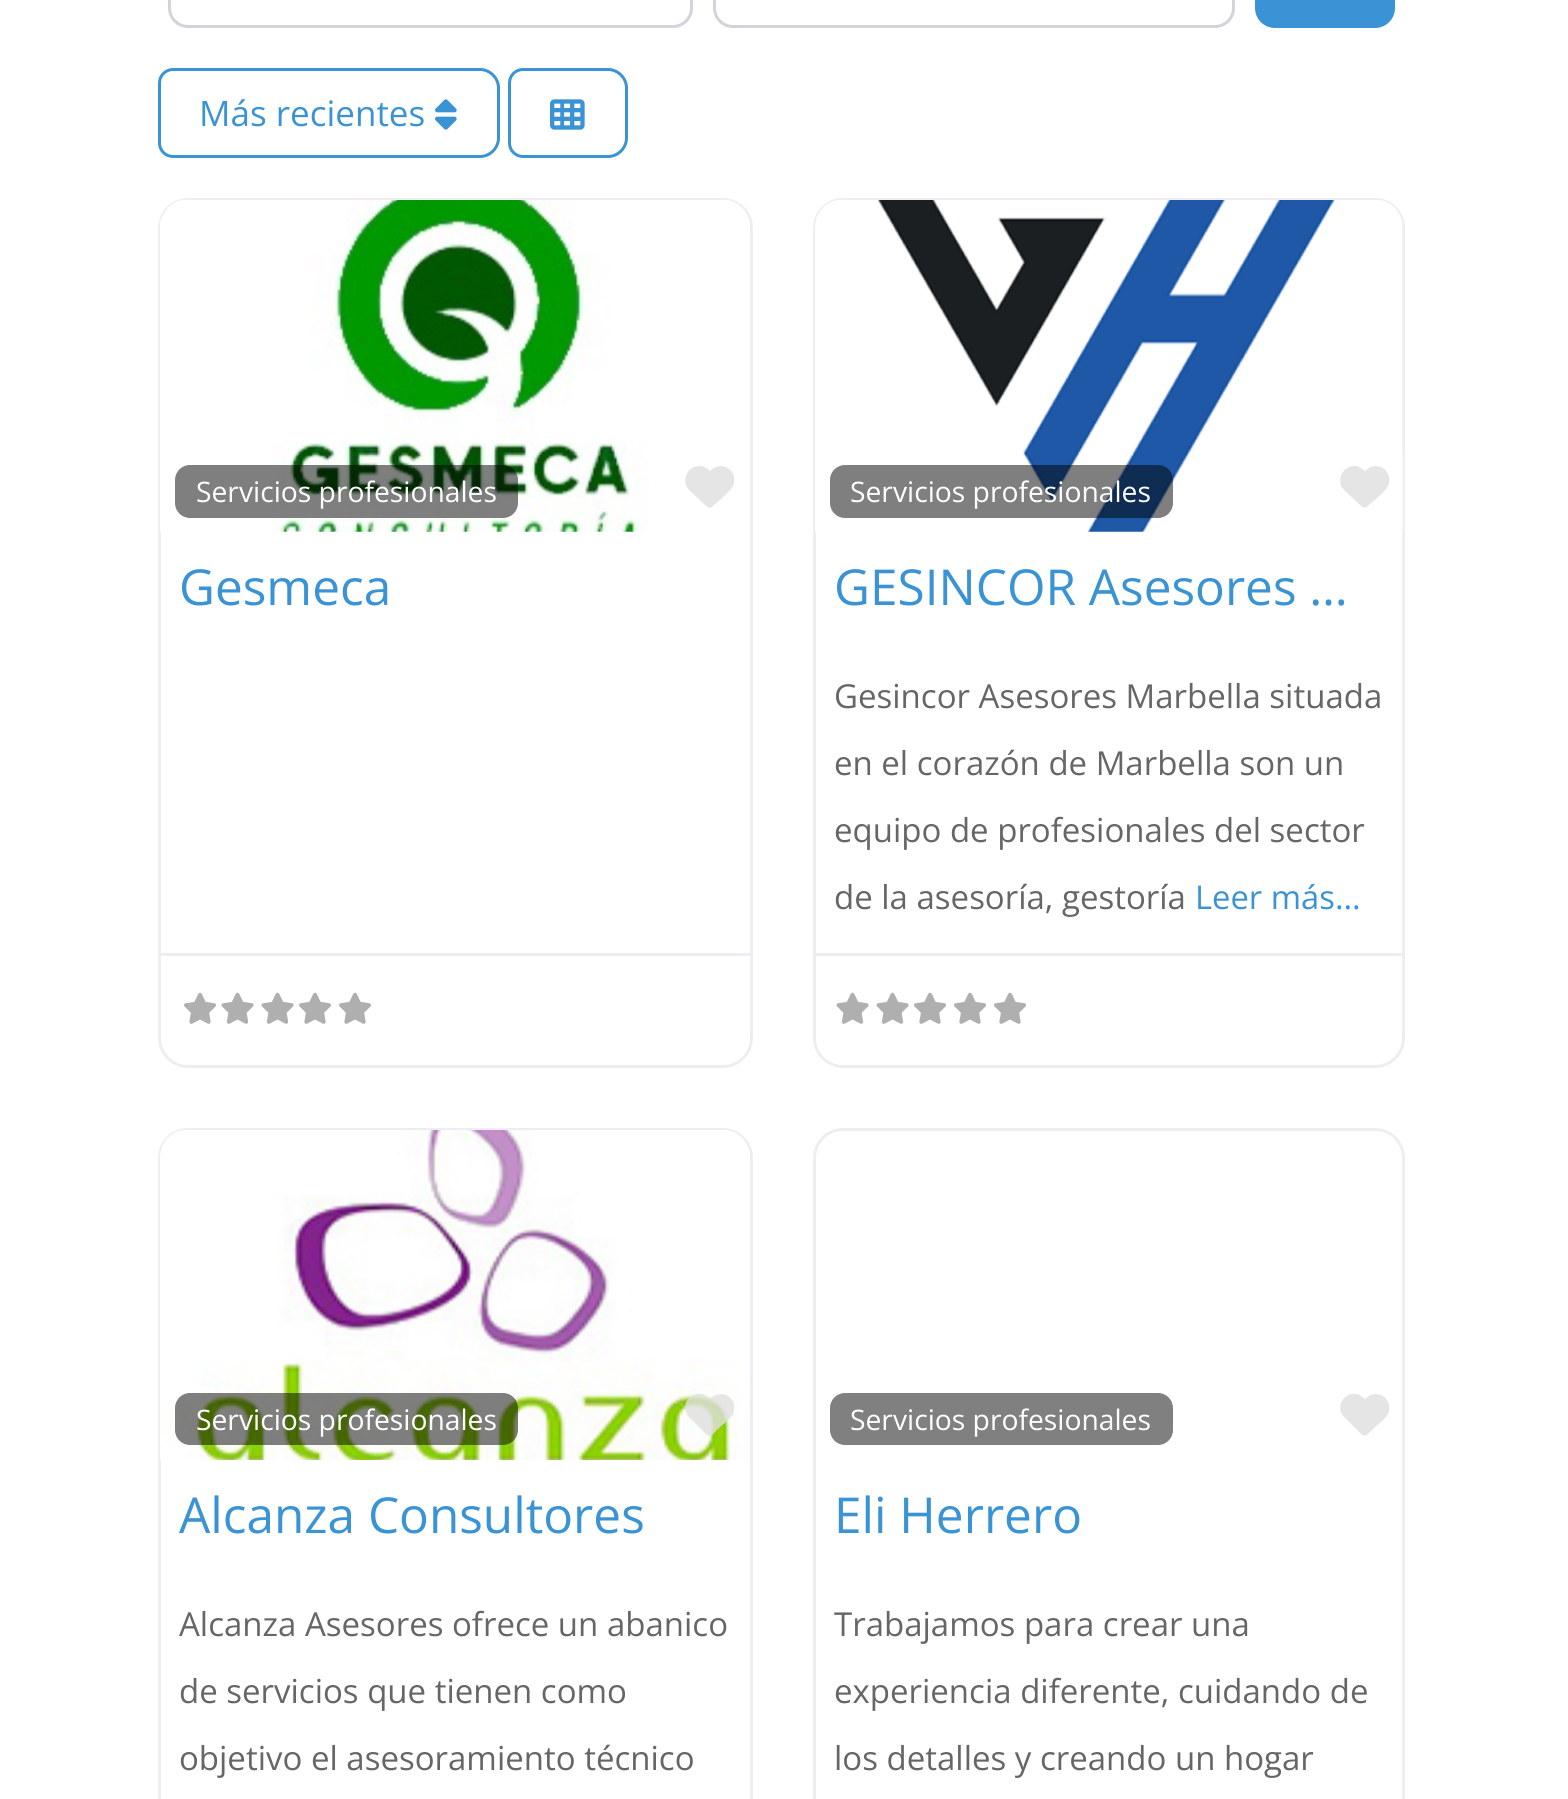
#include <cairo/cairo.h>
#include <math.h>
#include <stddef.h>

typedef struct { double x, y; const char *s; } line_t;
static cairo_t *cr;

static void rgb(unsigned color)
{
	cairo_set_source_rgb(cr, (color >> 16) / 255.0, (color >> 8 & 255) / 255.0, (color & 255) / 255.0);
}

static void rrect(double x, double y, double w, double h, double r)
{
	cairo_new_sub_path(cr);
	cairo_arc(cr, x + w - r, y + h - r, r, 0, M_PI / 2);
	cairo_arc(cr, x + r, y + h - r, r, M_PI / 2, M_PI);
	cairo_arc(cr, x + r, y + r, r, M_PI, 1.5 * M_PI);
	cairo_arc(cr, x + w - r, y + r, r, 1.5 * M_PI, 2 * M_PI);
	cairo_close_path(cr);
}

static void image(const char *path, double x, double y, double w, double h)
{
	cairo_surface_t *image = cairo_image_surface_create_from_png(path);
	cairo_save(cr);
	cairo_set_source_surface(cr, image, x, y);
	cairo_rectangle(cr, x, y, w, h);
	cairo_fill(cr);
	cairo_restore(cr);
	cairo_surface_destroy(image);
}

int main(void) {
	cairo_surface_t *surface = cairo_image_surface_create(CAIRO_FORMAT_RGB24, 1568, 1799);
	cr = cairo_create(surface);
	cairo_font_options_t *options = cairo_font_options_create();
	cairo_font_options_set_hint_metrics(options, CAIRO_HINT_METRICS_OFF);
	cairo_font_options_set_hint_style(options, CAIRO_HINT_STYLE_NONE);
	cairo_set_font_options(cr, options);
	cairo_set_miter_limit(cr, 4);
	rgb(0xffffff);
	cairo_paint(cr);
	rrect(169.5, -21.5, 522, 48, 18.5);
	rgb(0xd5d2dc);
	cairo_set_line_width(cr, 3);
	cairo_stroke(cr);
	rrect(714.5, -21.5, 519, 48, 18.5);
	cairo_stroke(cr);
	rgb(0x3993d5);
	rrect(1256.5, -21.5, 137, 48, 18.5);
	cairo_fill_preserve(cr);
	cairo_stroke(cr);
	cairo_new_path(cr);
	cairo_move_to(cr, 173, 69.5);
	cairo_line_to(cr, 480, 69.5);
	cairo_curve_to(cr, 490, 69.5, 498.5, 78, 498.5, 88);
	cairo_line_to(cr, 498.5, 138);
	cairo_curve_to(cr, 498.5, 148, 490, 156.5, 480, 156.5);
	cairo_line_to(cr, 173, 156.5);
	cairo_curve_to(cr, 165.5, 156.5, 159.5, 150.5, 159.5, 143);
	cairo_line_to(cr, 159.5, 83);
	cairo_curve_to(cr, 159.5, 75.5, 165.5, 69.5, 173, 69.5);
	cairo_close_path(cr);
	cairo_stroke(cr);
	image("img/1.png", 435, 99, 22, 31);
	cairo_new_path(cr);
	cairo_move_to(cr, 523, 69.5);
	cairo_line_to(cr, 608, 69.5);
	cairo_curve_to(cr, 618, 69.5, 626.5, 78, 626.5, 88);
	cairo_line_to(cr, 626.5, 138);
	cairo_curve_to(cr, 626.5, 148, 618, 156.5, 608, 156.5);
	cairo_line_to(cr, 523, 156.5);
	cairo_curve_to(cr, 515.5, 156.5, 509.5, 150.5, 509.5, 143);
	cairo_line_to(cr, 509.5, 83);
	cairo_curve_to(cr, 509.5, 75.5, 515.5, 69.5, 523, 69.5);
	cairo_close_path(cr);
	cairo_stroke(cr);
	image("img/2.png", 550, 99, 35, 31);
	rrect(159.5, 199.5, 592, 867, 28.5);
	rgb(0xefecf3);
	cairo_stroke(cr);
	image("img/3.png", 160, 200, 590, 332);
	cairo_set_source_rgba(cr, 0, 0, 0, 0.5);
	rrect(175, 465, 343, 53, 15);
	cairo_fill(cr);
	rgb(0xe5e5e5);
	cairo_new_path(cr);
	cairo_move_to(cr, 690, 491);
	cairo_line_to(cr, 707, 507);
	cairo_line_to(cr, 690, 491);
	cairo_line_to(cr, 704, 504);
	cairo_curve_to(cr, 709, 509, 710, 509, 715, 504);
	cairo_line_to(cr, 721, 499);
	cairo_curve_to(cr, 725, 495, 730, 491, 733, 486);
	cairo_curve_to(cr, 739, 471, 722, 459, 710, 471);
	cairo_curve_to(cr, 695, 456, 676, 478, 690, 491);
	cairo_close_path(cr);
	cairo_fill(cr);
	rgb(0xefecf3);
	cairo_rectangle(cr, 160, 953, 590, 3);
	cairo_fill(cr);
	image("img/4.png", 184, 992, 32, 32);
	image("img/5.png", 221, 992, 33, 32);
	image("img/5.png", 261, 992, 33, 32);
	image("img/4.png", 299, 992, 32, 32);
	image("img/4.png", 339, 992, 32, 32);
	rrect(814.5, 199.5, 589, 867, 28.5);
	cairo_stroke(cr);
	image("img/6.png", 815, 200, 588, 332);
	cairo_set_source_rgba(cr, 0, 0, 0, 0.5);
	rrect(830, 465, 343, 53, 15);
	cairo_fill(cr);
	rgb(0xe5e5e5);
	cairo_new_path(cr);
	cairo_move_to(cr, 1345, 491);
	cairo_line_to(cr, 1362, 507);
	cairo_line_to(cr, 1345, 491);
	cairo_line_to(cr, 1359, 504);
	cairo_curve_to(cr, 1364, 509, 1365, 509, 1370, 504);
	cairo_line_to(cr, 1376, 499);
	cairo_curve_to(cr, 1380, 495, 1385, 491, 1388, 486);
	cairo_curve_to(cr, 1394, 471, 1377, 459, 1365, 471);
	cairo_curve_to(cr, 1350, 456, 1331, 478, 1345, 491);
	cairo_close_path(cr);
	cairo_fill(cr);
	rgb(0xefecf3);
	cairo_rectangle(cr, 815, 953, 588, 3);
	cairo_fill(cr);
	image("img/5.png", 836, 992, 33, 32);
	image("img/5.png", 876, 992, 33, 32);
	image("img/4.png", 914, 992, 32, 32);
	image("img/4.png", 954, 992, 32, 32);
	image("img/4.png", 994, 992, 32, 32);
	rrect(159.5, 1129.5, 592, 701, 28.5);
	cairo_stroke(cr);
	image("img/7.png", 160, 1130, 590, 330);
	cairo_set_source_rgba(cr, 0, 0, 0, 0.5);
	rrect(175, 1393, 343, 52, 15);
	cairo_fill(cr);
	cairo_set_source_rgba(cr, 0.875, 0.875, 0.875, 0.8);
	cairo_new_path(cr);
	cairo_move_to(cr, 690, 1418);
	cairo_line_to(cr, 707, 1435);
	cairo_line_to(cr, 690, 1418);
	cairo_line_to(cr, 704, 1432);
	cairo_curve_to(cr, 709, 1437, 710, 1437, 715, 1432);
	cairo_line_to(cr, 721, 1426);
	cairo_curve_to(cr, 725, 1423, 730, 1419, 733, 1414);
	cairo_curve_to(cr, 739, 1399, 722, 1387, 710, 1399);
	cairo_curve_to(cr, 695, 1384, 676, 1405, 690, 1418);
	cairo_close_path(cr);
	cairo_fill(cr);
	rrect(814.5, 1129.5, 589, 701, 28.5);
	rgb(0xefecf3);
	cairo_stroke(cr);
	rgb(0x808080);
	rrect(830, 1393, 343, 52, 15);
	cairo_fill(cr);
	rgb(0xe5e5e5);
	cairo_new_path(cr);
	cairo_move_to(cr, 1345, 1418);
	cairo_line_to(cr, 1362, 1435);
	cairo_line_to(cr, 1345, 1418);
	cairo_line_to(cr, 1359, 1432);
	cairo_curve_to(cr, 1364, 1437, 1365, 1437, 1370, 1432);
	cairo_line_to(cr, 1376, 1426);
	cairo_curve_to(cr, 1380, 1423, 1385, 1419, 1388, 1414);
	cairo_curve_to(cr, 1394, 1399, 1377, 1387, 1365, 1399);
	cairo_curve_to(cr, 1350, 1384, 1331, 1405, 1345, 1418);
	cairo_close_path(cr);
	cairo_fill(cr);
	cairo_select_font_face(cr, "Open Sans", CAIRO_FONT_SLANT_NORMAL, CAIRO_FONT_WEIGHT_NORMAL);
	cairo_set_font_size(cr, 35);
	rgb(0x3993d5);
	cairo_move_to(cr, 199, 126);
	cairo_show_text(cr, "Más recientes");
	cairo_set_font_size(cr, 28.25);
	rgb(0xffffff);
	cairo_move_to(cr, 196, 502);
	cairo_show_text(cr, "Servicios profesionales");
	cairo_set_font_size(cr, 49.5);
	rgb(0x3993d5);
	cairo_move_to(cr, 179, 605);
	cairo_show_text(cr, "Gesmeca");
	cairo_set_font_size(cr, 28.25);
	rgb(0xffffff);
	cairo_move_to(cr, 850, 502);
	cairo_show_text(cr, "Servicios profesionales");
	cairo_set_font_size(cr, 49.5);
	rgb(0x3993d5);
	cairo_move_to(cr, 834, 605);
	cairo_show_text(cr, "GESINCOR Asesores …");
	cairo_set_font_size(cr, 33);
	rgb(0x666666);
	{
		static const line_t items[] = {
			{834, 708, "Gesincor Asesores Marbella situada"},
			{834, 775, "en el corazón de Marbella son un"},
			{834, 842, "equipo de profesionales del sector"},
			{834, 909, "de la asesoría, gestoría"},
		};
		for (size_t i = 0; i < sizeof items / sizeof *items; i++) {
			cairo_move_to(cr, items[i].x, items[i].y);
			cairo_show_text(cr, items[i].s);
		}
	}
	cairo_set_font_size(cr, 32.75);
	rgb(0x3993d5);
	cairo_move_to(cr, 1195, 909);
	cairo_show_text(cr, "Leer más...");
	cairo_set_font_size(cr, 28.25);
	rgb(0xffffff);
	cairo_move_to(cr, 196, 1430);
	cairo_show_text(cr, "Servicios profesionales");
	cairo_set_font_size(cr, 49.5);
	rgb(0x3993d5);
	cairo_move_to(cr, 179, 1533);
	cairo_show_text(cr, "Alcanza Consultores");
	cairo_set_font_size(cr, 33);
	rgb(0x666666);
	{
		static const line_t items[] = {
			{179, 1636, "Alcanza Asesores ofrece un abanico"},
			{179, 1703, "de servicios que tienen como"},
			{179, 1770, "objetivo el asesoramiento técnico"},
		};
		for (size_t i = 0; i < sizeof items / sizeof *items; i++) {
			cairo_move_to(cr, items[i].x, items[i].y);
			cairo_show_text(cr, items[i].s);
		}
	}
	cairo_set_font_size(cr, 28.25);
	rgb(0xffffff);
	cairo_move_to(cr, 850, 1430);
	cairo_show_text(cr, "Servicios profesionales");
	cairo_set_font_size(cr, 49.5);
	rgb(0x3993d5);
	cairo_move_to(cr, 834, 1533);
	cairo_show_text(cr, "Eli Herrero");
	cairo_set_font_size(cr, 33);
	rgb(0x666666);
	{
		static const line_t items[] = {
			{834, 1636, "Trabajamos para crear una"},
			{834, 1703, "experiencia diferente, cuidando de"},
			{834, 1770, "los detalles y creando un hogar"},
		};
		for (size_t i = 0; i < sizeof items / sizeof *items; i++) {
			cairo_move_to(cr, items[i].x, items[i].y);
			cairo_show_text(cr, items[i].s);
		}
	}
	cairo_surface_write_to_png(surface, "page.png");
	cairo_font_options_destroy(options);
	cairo_destroy(cr);
	cairo_surface_destroy(surface);
	return 0;
}
